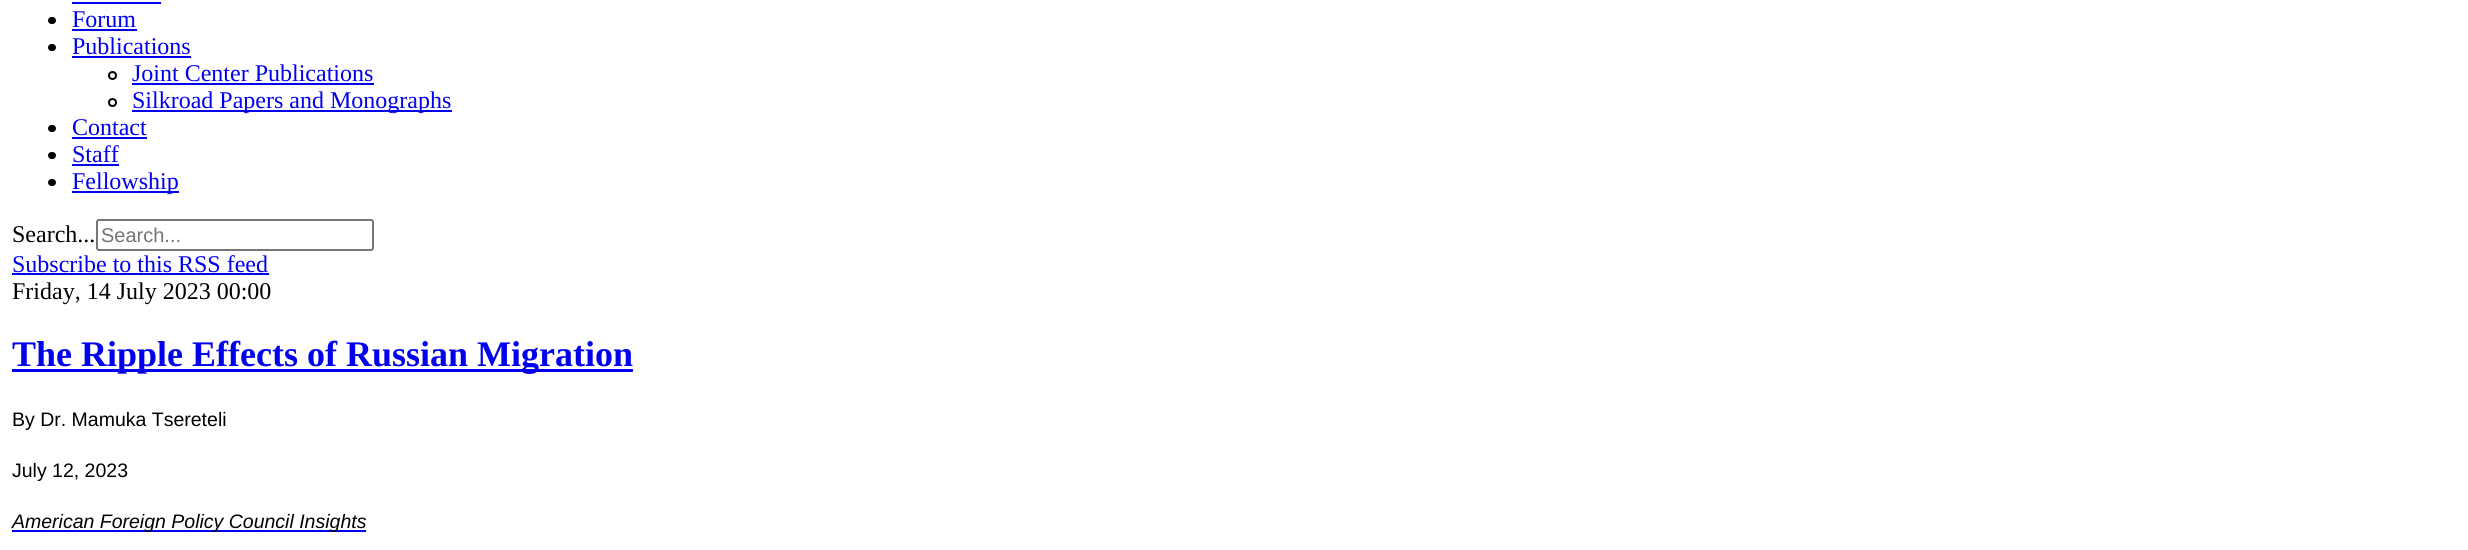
#include <cairo/cairo.h>
#include <math.h>
#include <stddef.h>

typedef struct { double x, y; const char *s; } line_t;
typedef struct { double x, y, w, h; unsigned color; } box_t;
static cairo_t *cr;

static void rgb(unsigned color)
{
	cairo_set_source_rgb(cr, (color >> 16) / 255.0, (color >> 8 & 255) / 255.0, (color & 255) / 255.0);
}

static void rrect(double x, double y, double w, double h, double r)
{
	cairo_new_sub_path(cr);
	cairo_arc(cr, x + w - r, y + h - r, r, 0, M_PI / 2);
	cairo_arc(cr, x + r, y + h - r, r, M_PI / 2, M_PI);
	cairo_arc(cr, x + r, y + r, r, M_PI, 1.5 * M_PI);
	cairo_arc(cr, x + w - r, y + r, r, 1.5 * M_PI, 2 * M_PI);
	cairo_close_path(cr);
}

int main(void) {
	cairo_surface_t *surface = cairo_image_surface_create(CAIRO_FORMAT_RGB24, 2468, 550);
	cr = cairo_create(surface);
	cairo_font_options_t *options = cairo_font_options_create();
	cairo_font_options_set_hint_metrics(options, CAIRO_HINT_METRICS_OFF);
	cairo_font_options_set_hint_style(options, CAIRO_HINT_STYLE_NONE);
	cairo_set_font_options(cr, options);
	cairo_set_miter_limit(cr, 4);
	rgb(0xffffff);
	cairo_paint(cr);
	rgb(0x0000ee);
	cairo_rectangle(cr, 72, 2, 89, 2);
	cairo_fill(cr);
	rgb(0x000000);
	rrect(48, 17, 8, 7, 3.5);
	cairo_fill(cr);
	rgb(0x0000ee);
	cairo_rectangle(cr, 72, 29, 65, 2);
	cairo_fill(cr);
	rgb(0x000000);
	rrect(48, 44, 8, 7, 3.5);
	cairo_fill(cr);
	rgb(0x0000ee);
	cairo_rectangle(cr, 72, 56, 119, 2);
	cairo_fill(cr);
	cairo_arc(cr, 112.5, 75.5, 3.5, 0, 2 * M_PI);
	rgb(0x000000);
	cairo_stroke(cr);
	rgb(0x0000ee);
	cairo_rectangle(cr, 132, 83, 242, 2);
	cairo_fill(cr);
	cairo_arc(cr, 112.5, 102.5, 3.5, 0, 2 * M_PI);
	rgb(0x000000);
	cairo_stroke(cr);
	rgb(0x0000ee);
	cairo_rectangle(cr, 132, 110, 320, 2);
	cairo_fill(cr);
	rgb(0x000000);
	rrect(48, 125, 8, 7, 3.5);
	cairo_fill(cr);
	rgb(0x0000ee);
	cairo_rectangle(cr, 72, 137, 75, 2);
	cairo_fill(cr);
	rgb(0x000000);
	rrect(48, 152, 8, 7, 3.5);
	cairo_fill(cr);
	rgb(0x0000ee);
	cairo_rectangle(cr, 72, 164, 47, 2);
	cairo_fill(cr);
	rgb(0x000000);
	rrect(48, 179, 8, 7, 3.5);
	cairo_fill(cr);
	rgb(0x0000ee);
	cairo_rectangle(cr, 72, 191, 107, 2);
	cairo_fill(cr);
	rrect(97, 220, 276, 30, 2);
	rgb(0x767676);
	cairo_stroke(cr);
	{
		static const box_t items[] = {
			{12, 273, 257, 2, 0x0000ee},
			{12, 369, 621, 3, 0x0000ee},
			{12, 530, 354, 2, 0x0000ee},
		};
		for (size_t i = 0; i < sizeof items / sizeof *items; i++) {
			rgb(items[i].color);
			cairo_rectangle(cr, items[i].x, items[i].y, items[i].w, items[i].h);
			cairo_fill(cr);
		}
	}
	cairo_select_font_face(cr, "Liberation Serif", CAIRO_FONT_SLANT_NORMAL, CAIRO_FONT_WEIGHT_NORMAL);
	cairo_set_font_size(cr, 24);
	{
		static const line_t items[] = {
			{72, 27, "Forum"},
			{72, 54, "Publications"},
			{132, 81, "Joint Center Publications"},
			{132, 108, "Silkroad Papers and Monographs"},
			{72, 135, "Contact"},
			{72, 162, "Staff"},
			{72, 189, "Fellowship"},
		};
		for (size_t i = 0; i < sizeof items / sizeof *items; i++) {
			cairo_move_to(cr, items[i].x, items[i].y);
			cairo_show_text(cr, items[i].s);
		}
	}
	rgb(0x000000);
	cairo_move_to(cr, 12, 242);
	cairo_show_text(cr, "Search...");
	cairo_select_font_face(cr, "Liberation Sans", CAIRO_FONT_SLANT_NORMAL, CAIRO_FONT_WEIGHT_NORMAL);
	cairo_set_font_size(cr, 20);
	rgb(0x757575);
	cairo_move_to(cr, 101, 242);
	cairo_show_text(cr, "Search...");
	cairo_select_font_face(cr, "Liberation Serif", CAIRO_FONT_SLANT_NORMAL, CAIRO_FONT_WEIGHT_NORMAL);
	cairo_set_font_size(cr, 24);
	rgb(0x0000ee);
	cairo_move_to(cr, 12, 272);
	cairo_show_text(cr, "Subscribe to this RSS feed");
	rgb(0x000000);
	cairo_move_to(cr, 12, 299);
	cairo_show_text(cr, "Friday, 14 July 2023 00:00");
	cairo_select_font_face(cr, "Liberation Serif", CAIRO_FONT_SLANT_NORMAL, CAIRO_FONT_WEIGHT_BOLD);
	cairo_set_font_size(cr, 36);
	rgb(0x0000ee);
	cairo_move_to(cr, 12, 366);
	cairo_show_text(cr, "The Ripple Effects of Russian Migration");
	cairo_select_font_face(cr, "Liberation Sans", CAIRO_FONT_SLANT_NORMAL, CAIRO_FONT_WEIGHT_NORMAL);
	cairo_set_font_size(cr, 19.5);
	rgb(0x000000);
	cairo_move_to(cr, 12, 426);
	cairo_show_text(cr, "By Dr. Mamuka Tsereteli");
	cairo_move_to(cr, 12, 477);
	cairo_show_text(cr, "July 12, 2023");
	cairo_select_font_face(cr, "Liberation Sans", CAIRO_FONT_SLANT_ITALIC, CAIRO_FONT_WEIGHT_NORMAL);
	cairo_move_to(cr, 12, 528);
	cairo_show_text(cr, "American Foreign Policy Council Insights");
	cairo_surface_write_to_png(surface, "page.png");
	cairo_font_options_destroy(options);
	cairo_destroy(cr);
	cairo_surface_destroy(surface);
	return 0;
}
